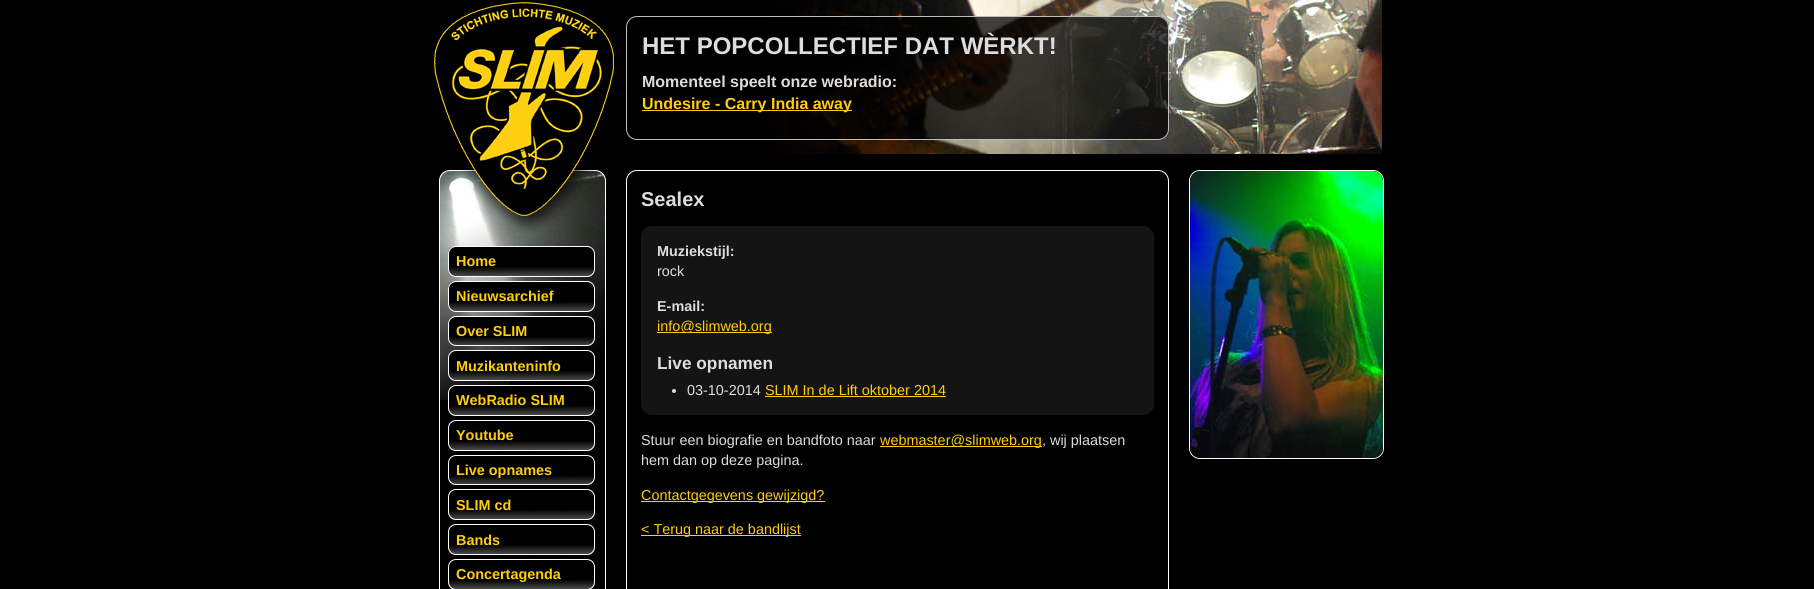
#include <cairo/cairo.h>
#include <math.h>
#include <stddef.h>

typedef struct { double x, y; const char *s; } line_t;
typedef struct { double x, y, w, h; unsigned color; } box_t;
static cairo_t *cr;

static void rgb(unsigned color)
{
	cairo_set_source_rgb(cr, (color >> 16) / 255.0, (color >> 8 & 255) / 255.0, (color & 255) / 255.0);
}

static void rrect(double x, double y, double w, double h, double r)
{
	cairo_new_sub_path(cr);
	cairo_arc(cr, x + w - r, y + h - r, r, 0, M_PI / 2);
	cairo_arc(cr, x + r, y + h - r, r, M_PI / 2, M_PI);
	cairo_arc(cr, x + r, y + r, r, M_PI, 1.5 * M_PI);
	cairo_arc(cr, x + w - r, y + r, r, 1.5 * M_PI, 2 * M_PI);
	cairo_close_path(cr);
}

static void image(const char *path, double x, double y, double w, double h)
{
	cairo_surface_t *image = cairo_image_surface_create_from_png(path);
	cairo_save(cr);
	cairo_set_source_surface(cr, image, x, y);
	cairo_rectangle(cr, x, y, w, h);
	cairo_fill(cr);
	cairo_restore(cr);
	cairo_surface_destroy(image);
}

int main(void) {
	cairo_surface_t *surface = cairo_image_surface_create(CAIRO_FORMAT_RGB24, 1814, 589);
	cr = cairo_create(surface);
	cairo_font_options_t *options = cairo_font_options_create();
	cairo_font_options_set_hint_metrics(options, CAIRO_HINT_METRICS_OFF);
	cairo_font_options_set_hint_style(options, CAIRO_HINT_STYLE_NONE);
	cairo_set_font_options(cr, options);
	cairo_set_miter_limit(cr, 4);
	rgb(0x000000);
	cairo_paint(cr);
	image("img/1.png", 751, 0, 631, 154);
	image("img/5.png", 440, 171, 166, 229);
	rrect(439.5, 170.5, 166, 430, 10.5);
	rgb(0xffffff);
	cairo_set_line_width(cr, 1);
	cairo_stroke(cr);
	image("img/2.png", 434, 2, 180, 231);
	image("img/3.png", 751, 0, 178, 154);
	image("img/4.png", 788, 16, 381, 124);
	rrect(626.5, 16.5, 542, 123, 10.5);
	rgb(0xbdbdbd);
	cairo_stroke(cr);
	rgb(0xffce0c);
	cairo_rectangle(cr, 642, 110, 210, 1);
	cairo_fill(cr);
	image("img/6.png", 448, 247, 147, 30);
	rrect(448.5, 246.5, 146, 30, 7.5);
	rgb(0xffffff);
	cairo_stroke(cr);
	image("img/7.png", 448, 282, 147, 30);
	rrect(448.5, 281.5, 146, 30, 7.5);
	cairo_stroke(cr);
	image("img/8.png", 448, 317, 147, 29);
	rrect(448.5, 316.5, 146, 29, 7.5);
	cairo_stroke(cr);
	image("img/9.png", 448, 351, 147, 30);
	rrect(448.5, 350.5, 146, 30, 7.5);
	cairo_stroke(cr);
	image("img/10.png", 448, 386, 147, 30);
	rrect(448.5, 385.5, 146, 30, 7.5);
	cairo_stroke(cr);
	image("img/11.png", 448, 421, 147, 30);
	rrect(448.5, 420.5, 146, 30, 7.5);
	cairo_stroke(cr);
	image("img/12.png", 448, 456, 147, 29);
	rrect(448.5, 455.5, 146, 29, 7.5);
	cairo_stroke(cr);
	image("img/11.png", 448, 490, 147, 30);
	rrect(448.5, 489.5, 146, 30, 7.5);
	cairo_stroke(cr);
	image("img/11.png", 448, 525, 147, 30);
	rrect(448.5, 524.5, 146, 30, 7.5);
	cairo_stroke(cr);
	image("img/13.png", 448, 560, 147, 29);
	rrect(448.5, 559.5, 146, 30, 7.5);
	cairo_stroke(cr);
	rrect(626.5, 170.5, 542, 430, 10.5);
	cairo_stroke(cr);
	rgb(0x151414);
	rrect(641.5, 226.5, 512, 188, 10.5);
	cairo_fill_preserve(cr);
	cairo_stroke(cr);
	rgb(0xffce0c);
	cairo_rectangle(cr, 657, 332, 115, 1);
	cairo_fill(cr);
	rgb(0xdddddd);
	cairo_arc(cr, 674, 391, 2, 0, 2 * M_PI);
	cairo_fill(cr);
	{
		static const box_t items[] = {
			{765, 396, 181, 1, 0xffce0c},
			{880, 446, 162, 1, 0xffce0c},
			{641, 501, 184, 1, 0xffce0c},
			{641, 535, 160, 1, 0xffce0c},
		};
		for (size_t i = 0; i < sizeof items / sizeof *items; i++) {
			rgb(items[i].color);
			cairo_rectangle(cr, items[i].x, items[i].y, items[i].w, items[i].h);
			cairo_fill(cr);
		}
	}
	rrect(1189.5, 170.5, 194, 288, 10.5);
	rgb(0xffffff);
	cairo_stroke(cr);
	image("img/14.png", 1190, 171, 193, 287);
	cairo_select_font_face(cr, "Liberation Sans", CAIRO_FONT_SLANT_NORMAL, CAIRO_FONT_WEIGHT_BOLD);
	cairo_set_font_size(cr, 24);
	rgb(0xdddddd);
	cairo_move_to(cr, 642, 54);
	cairo_show_text(cr, "HET POPCOLLECTIEF DAT WÈRKT!");
	cairo_set_font_size(cr, 16);
	cairo_move_to(cr, 642, 87);
	cairo_show_text(cr, "Momenteel speelt onze webradio:");
	rgb(0xffce0c);
	cairo_move_to(cr, 642, 109);
	cairo_show_text(cr, "Undesire - Carry India away");
	cairo_set_font_size(cr, 14.4);
	{
		static const line_t items[] = {
			{456, 266, "Home"},
			{456, 301, "Nieuwsarchief"},
			{456, 336, "Over SLIM"},
			{456, 371, "Muzikanteninfo"},
			{456, 405, "WebRadio SLIM"},
			{456, 440, "Youtube"},
			{456, 475, "Live opnames"},
			{456, 510, "SLIM cd"},
			{456, 545, "Bands"},
			{456, 579, "Concertagenda"},
		};
		for (size_t i = 0; i < sizeof items / sizeof *items; i++) {
			cairo_move_to(cr, items[i].x, items[i].y);
			cairo_show_text(cr, items[i].s);
		}
	}
	cairo_set_font_size(cr, 20);
	rgb(0xdddddd);
	cairo_move_to(cr, 641, 206);
	cairo_show_text(cr, "Sealex");
	cairo_set_font_size(cr, 14.4);
	cairo_move_to(cr, 657, 256);
	cairo_show_text(cr, "Muziekstijl:");
	cairo_select_font_face(cr, "Liberation Sans", CAIRO_FONT_SLANT_NORMAL, CAIRO_FONT_WEIGHT_NORMAL);
	cairo_move_to(cr, 657, 276);
	cairo_show_text(cr, "rock");
	cairo_select_font_face(cr, "Liberation Sans", CAIRO_FONT_SLANT_NORMAL, CAIRO_FONT_WEIGHT_BOLD);
	cairo_move_to(cr, 657, 311);
	cairo_show_text(cr, "E-mail:");
	cairo_select_font_face(cr, "Liberation Sans", CAIRO_FONT_SLANT_NORMAL, CAIRO_FONT_WEIGHT_NORMAL);
	rgb(0xffce0c);
	cairo_move_to(cr, 657, 331);
	cairo_show_text(cr, "info@slimweb.org");
	cairo_select_font_face(cr, "Liberation Sans", CAIRO_FONT_SLANT_NORMAL, CAIRO_FONT_WEIGHT_BOLD);
	cairo_set_font_size(cr, 17.25);
	rgb(0xdddddd);
	cairo_move_to(cr, 657, 369);
	cairo_show_text(cr, "Live opnamen");
	cairo_select_font_face(cr, "Liberation Sans", CAIRO_FONT_SLANT_NORMAL, CAIRO_FONT_WEIGHT_NORMAL);
	cairo_set_font_size(cr, 14.4);
	cairo_move_to(cr, 687, 395);
	cairo_show_text(cr, "03-10-2014");
	rgb(0xffce0c);
	cairo_move_to(cr, 765, 395);
	cairo_show_text(cr, "SLIM In de Lift oktober 2014");
	rgb(0xdddddd);
	cairo_move_to(cr, 641, 445);
	cairo_show_text(cr, "Stuur een biografie en bandfoto naar");
	rgb(0xffce0c);
	cairo_move_to(cr, 880, 445);
	cairo_show_text(cr, "webmaster@slimweb.org");
	rgb(0xdddddd);
	cairo_move_to(cr, 1042, 445);
	cairo_show_text(cr, ", wij plaatsen");
	cairo_move_to(cr, 641, 465);
	cairo_show_text(cr, "hem dan op deze pagina.");
	rgb(0xffce0c);
	cairo_move_to(cr, 641, 500);
	cairo_show_text(cr, "Contactgegevens gewijzigd?");
	cairo_move_to(cr, 641, 534);
	cairo_show_text(cr, "< Terug naar de bandlijst");
	cairo_surface_write_to_png(surface, "page.png");
	cairo_font_options_destroy(options);
	cairo_destroy(cr);
	cairo_surface_destroy(surface);
	return 0;
}
